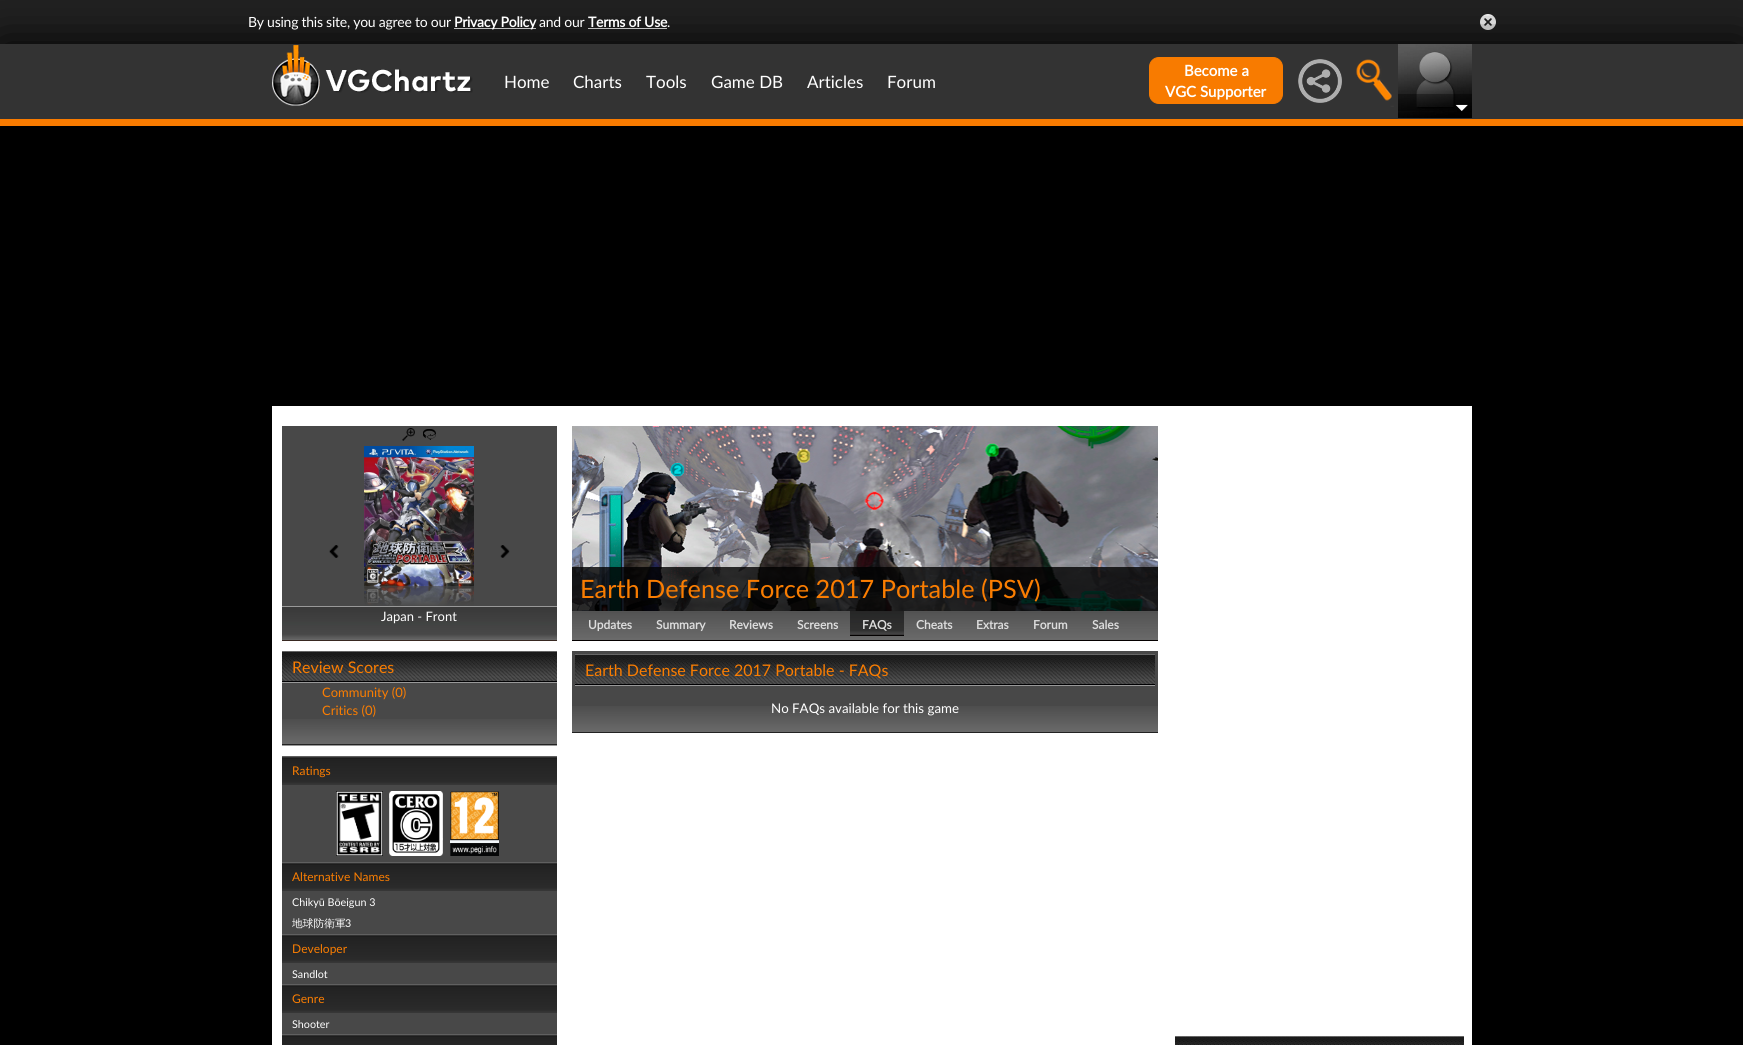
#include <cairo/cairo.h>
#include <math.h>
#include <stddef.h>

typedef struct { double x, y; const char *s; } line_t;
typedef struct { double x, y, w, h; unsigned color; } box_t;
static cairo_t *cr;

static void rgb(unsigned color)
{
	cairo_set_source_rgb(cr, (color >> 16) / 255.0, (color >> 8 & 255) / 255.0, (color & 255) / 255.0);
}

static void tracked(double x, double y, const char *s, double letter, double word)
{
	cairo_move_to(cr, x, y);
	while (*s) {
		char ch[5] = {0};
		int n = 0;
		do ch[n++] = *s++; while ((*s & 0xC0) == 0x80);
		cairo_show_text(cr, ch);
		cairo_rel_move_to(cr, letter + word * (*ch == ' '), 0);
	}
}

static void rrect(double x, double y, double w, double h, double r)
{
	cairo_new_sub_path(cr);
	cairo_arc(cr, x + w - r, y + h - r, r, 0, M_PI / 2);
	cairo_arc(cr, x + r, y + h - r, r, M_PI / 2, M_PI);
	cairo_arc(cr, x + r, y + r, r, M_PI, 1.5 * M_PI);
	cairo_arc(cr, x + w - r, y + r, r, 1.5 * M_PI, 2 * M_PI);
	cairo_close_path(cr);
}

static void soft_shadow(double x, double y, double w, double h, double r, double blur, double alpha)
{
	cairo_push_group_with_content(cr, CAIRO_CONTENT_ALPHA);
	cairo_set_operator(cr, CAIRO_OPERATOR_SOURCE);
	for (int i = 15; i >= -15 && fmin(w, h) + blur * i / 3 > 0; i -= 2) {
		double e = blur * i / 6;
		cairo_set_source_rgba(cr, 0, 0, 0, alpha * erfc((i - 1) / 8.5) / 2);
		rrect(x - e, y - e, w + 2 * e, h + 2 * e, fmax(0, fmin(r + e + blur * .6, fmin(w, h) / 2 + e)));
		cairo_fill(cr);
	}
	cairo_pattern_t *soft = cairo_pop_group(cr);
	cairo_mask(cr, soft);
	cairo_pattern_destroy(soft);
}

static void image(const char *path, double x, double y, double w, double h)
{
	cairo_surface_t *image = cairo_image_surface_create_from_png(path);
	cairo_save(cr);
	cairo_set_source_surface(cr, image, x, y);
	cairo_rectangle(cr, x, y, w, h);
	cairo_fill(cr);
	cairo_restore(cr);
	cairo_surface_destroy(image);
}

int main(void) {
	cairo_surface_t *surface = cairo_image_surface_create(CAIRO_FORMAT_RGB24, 1743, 1045);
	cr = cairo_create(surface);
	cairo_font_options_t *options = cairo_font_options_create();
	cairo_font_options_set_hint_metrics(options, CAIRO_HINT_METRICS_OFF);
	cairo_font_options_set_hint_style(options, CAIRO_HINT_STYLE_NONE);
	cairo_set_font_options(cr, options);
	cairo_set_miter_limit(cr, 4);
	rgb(0x000000);
	cairo_paint(cr);
	{
		static const box_t items[] = {
			{0, 0, 1743, 44, 0x222222},
			{454, 28, 82, 1, 0xffffff},
			{588, 28, 79, 1, 0xffffff},
		};
		for (size_t i = 0; i < sizeof items / sizeof *items; i++) {
			rgb(items[i].color);
			cairo_rectangle(cr, items[i].x, items[i].y, items[i].w, items[i].h);
			cairo_fill(cr);
		}
	}
	image("img/1.png", 1480, 14, 16, 16);
	rgb(0x000000);
	soft_shadow(0, 45, 1743, 82, 0, 25, 1);
	rgb(0x333333);
	cairo_rectangle(cr, 0, 44, 1743, 75);
	cairo_fill(cr);
	image("img/2.png", 272, 45, 201, 61);
	rgb(0xf87b00);
	rrect(1149.5, 57.5, 133, 46, 9.5);
	cairo_fill_preserve(cr);
	cairo_set_line_width(cr, 1);
	cairo_stroke(cr);
	image("img/3.png", 1298, 59, 44, 44);
	image("img/4.png", 1356, 59, 38, 48);
	image("img/5.png", 1398, 44, 74, 74);
	image("img/6.png", 1398, 94, 74, 17);
	{
		static const box_t items[] = {
			{0, 119, 1743, 7, 0xf97b00},
			{272, 406, 1200, 639, 0xffffff},
			{282, 426, 275, 180, 0x484848},
		};
		for (size_t i = 0; i < sizeof items / sizeof *items; i++) {
			rgb(items[i].color);
			cairo_rectangle(cr, items[i].x, items[i].y, items[i].w, items[i].h);
			cairo_fill(cr);
		}
	}
	image("img/7.png", 282, 606, 275, 35);
	image("img/8.png", 329, 545, 10, 13);
	image("img/9.png", 500, 545, 10, 13);
	image("img/10.png", 402, 428, 13, 13);
	image("img/11.png", 423, 429, 13, 11);
	image("img/12.png", 364, 446, 110, 140);
	image("img/13.png", 364, 586, 110, 20);
	cairo_rectangle(cr, 282, 683, 275, 36);
	cairo_fill(cr);
	image("img/14.png", 282, 719, 275, 11);
	image("img/15.png", 282, 651, 275, 31);
	rgb(0x999999);
	cairo_rectangle(cr, 282, 682, 275, 1);
	cairo_fill(cr);
	image("img/16.png", 282, 730, 275, 15);
	cairo_rectangle(cr, 282, 745, 275, 1);
	cairo_fill(cr);
	rgb(0x484848);
	cairo_rectangle(cr, 282, 785, 275, 249);
	cairo_fill(cr);
	image("img/17.png", 282, 756, 275, 29);
	image("img/18.png", 336, 791, 47, 65);
	image("img/19.png", 389, 791, 54, 65);
	image("img/20.png", 450, 791, 49, 65);
	image("img/17.png", 282, 862, 275, 29);
	image("img/17.png", 282, 934, 275, 29);
	image("img/17.png", 282, 984, 275, 29);
	image("img/21.png", 282, 1034, 275, 11);
	image("img/22.png", 572, 611, 586, 30);
	image("img/23.png", 572, 426, 586, 185);
	cairo_set_source_rgba(cr, 0, 0, 0, 0.8);
	cairo_rectangle(cr, 572, 567, 586, 44);
	cairo_fill(cr);
	image("img/24.png", 850, 611, 54, 25);
	rgb(0x484848);
	cairo_rectangle(cr, 572, 651, 586, 55);
	cairo_fill(cr);
	image("img/25.png", 572, 706, 586, 27);
	image("img/26.png", 575, 654, 580, 31);
	rgb(0x999999);
	cairo_rectangle(cr, 575, 685, 580, 1);
	cairo_fill(cr);
	image("img/27.png", 1175, 1036, 289, 9);
	cairo_select_font_face(cr, "Lato", CAIRO_FONT_SLANT_NORMAL, CAIRO_FONT_WEIGHT_NORMAL);
	cairo_set_font_size(cr, 14);
	rgb(0xffffff);
	tracked(248, 27, "By using this site, you agree to our", -0.25, 0);
	cairo_select_font_face(cr, "Lato", CAIRO_FONT_SLANT_NORMAL, CAIRO_FONT_WEIGHT_BOLD);
	tracked(454, 27, "Privacy Policy", -0.25, 0);
	cairo_select_font_face(cr, "Lato", CAIRO_FONT_SLANT_NORMAL, CAIRO_FONT_WEIGHT_NORMAL);
	tracked(539, 27, "and our", -0.25, 0);
	cairo_select_font_face(cr, "Lato", CAIRO_FONT_SLANT_NORMAL, CAIRO_FONT_WEIGHT_BOLD);
	tracked(588, 27, "Terms of Use", -0.25, 0);
	cairo_select_font_face(cr, "Lato", CAIRO_FONT_SLANT_NORMAL, CAIRO_FONT_WEIGHT_NORMAL);
	tracked(667, 27, ".", -0.25, 0);
	cairo_set_font_size(cr, 17);
	{
		static const line_t items[] = {
			{504, 88, "Home"},
			{573, 88, "Charts"},
			{646, 88, "Tools"},
			{711, 88, "Game DB"},
			{807, 88, "Articles"},
			{887, 88, "Forum"},
		};
		for (size_t i = 0; i < sizeof items / sizeof *items; i++) {
			cairo_move_to(cr, items[i].x, items[i].y);
			cairo_show_text(cr, items[i].s);
		}
	}
	cairo_select_font_face(cr, "Lato", CAIRO_FONT_SLANT_NORMAL, CAIRO_FONT_WEIGHT_BOLD);
	cairo_set_font_size(cr, 15);
	cairo_move_to(cr, 1184, 76);
	cairo_show_text(cr, "Become a");
	cairo_move_to(cr, 1165, 97);
	cairo_show_text(cr, "VGC Supporter");
	cairo_select_font_face(cr, "Lato", CAIRO_FONT_SLANT_NORMAL, CAIRO_FONT_WEIGHT_NORMAL);
	cairo_set_font_size(cr, 13);
	cairo_move_to(cr, 381, 621);
	cairo_show_text(cr, "Japan - Front");
	cairo_set_font_size(cr, 16);
	rgb(0xfa7d01);
	cairo_move_to(cr, 292, 673);
	cairo_show_text(cr, "Review Scores");
	cairo_set_font_size(cr, 13);
	cairo_move_to(cr, 322, 697);
	cairo_show_text(cr, "Community (0)");
	cairo_move_to(cr, 322, 715);
	cairo_show_text(cr, "Critics (0)");
	cairo_set_font_size(cr, 12);
	cairo_move_to(cr, 292, 775);
	cairo_show_text(cr, "Ratings");
	cairo_move_to(cr, 292, 881);
	cairo_show_text(cr, "Alternative Names");
	cairo_set_font_size(cr, 10.75);
	rgb(0xffffff);
	cairo_move_to(cr, 292, 906);
	cairo_show_text(cr, "Chikyū Bōeigun 3");
	cairo_select_font_face(cr, "WenQuanYi Zen Hei Medium", CAIRO_FONT_SLANT_NORMAL, CAIRO_FONT_WEIGHT_NORMAL);
	cairo_move_to(cr, 292, 927);
	cairo_show_text(cr, "地球防衛軍");
	cairo_select_font_face(cr, "Lato", CAIRO_FONT_SLANT_NORMAL, CAIRO_FONT_WEIGHT_NORMAL);
	cairo_move_to(cr, 345, 927);
	cairo_show_text(cr, "3");
	cairo_set_font_size(cr, 12);
	rgb(0xfa7d01);
	cairo_move_to(cr, 292, 953);
	cairo_show_text(cr, "Developer");
	cairo_set_font_size(cr, 10.75);
	rgb(0xffffff);
	cairo_move_to(cr, 292, 978);
	cairo_show_text(cr, "Sandlot");
	cairo_set_font_size(cr, 12);
	rgb(0xfa7d01);
	cairo_move_to(cr, 292, 1003);
	cairo_show_text(cr, "Genre");
	cairo_set_font_size(cr, 10.75);
	rgb(0xffffff);
	cairo_move_to(cr, 292, 1028);
	cairo_show_text(cr, "Shooter");
	cairo_set_font_size(cr, 25.3);
	rgb(0xfa7d01);
	cairo_move_to(cr, 580, 598);
	cairo_show_text(cr, "Earth Defense Force 2017 Portable (PSV)");
	cairo_select_font_face(cr, "Lato", CAIRO_FONT_SLANT_NORMAL, CAIRO_FONT_WEIGHT_BOLD);
	cairo_set_font_size(cr, 12);
	rgb(0xdddddd);
	{
		static const line_t items[] = {
			{588, 629, "Updates"},
			{656, 629, "Summary"},
			{729, 629, "Reviews"},
			{797, 629, "Screens"},
			{862, 629, "FAQs"},
			{916, 629, "Cheats"},
			{976, 629, "Extras"},
			{1033, 629, "Forum"},
			{1092, 629, "Sales"},
		};
		for (size_t i = 0; i < sizeof items / sizeof *items; i++) {
			cairo_move_to(cr, items[i].x, items[i].y);
			cairo_show_text(cr, items[i].s);
		}
	}
	cairo_select_font_face(cr, "Lato", CAIRO_FONT_SLANT_NORMAL, CAIRO_FONT_WEIGHT_NORMAL);
	cairo_set_font_size(cr, 16);
	rgb(0xfa7d01);
	cairo_move_to(cr, 585, 676);
	cairo_show_text(cr, "Earth Defense Force 2017 Portable - FAQs");
	cairo_set_font_size(cr, 13.3);
	rgb(0xffffff);
	cairo_move_to(cr, 771, 713);
	cairo_show_text(cr, "No FAQs available for this game");
	cairo_surface_write_to_png(surface, "page.png");
	cairo_font_options_destroy(options);
	cairo_destroy(cr);
	cairo_surface_destroy(surface);
	return 0;
}
